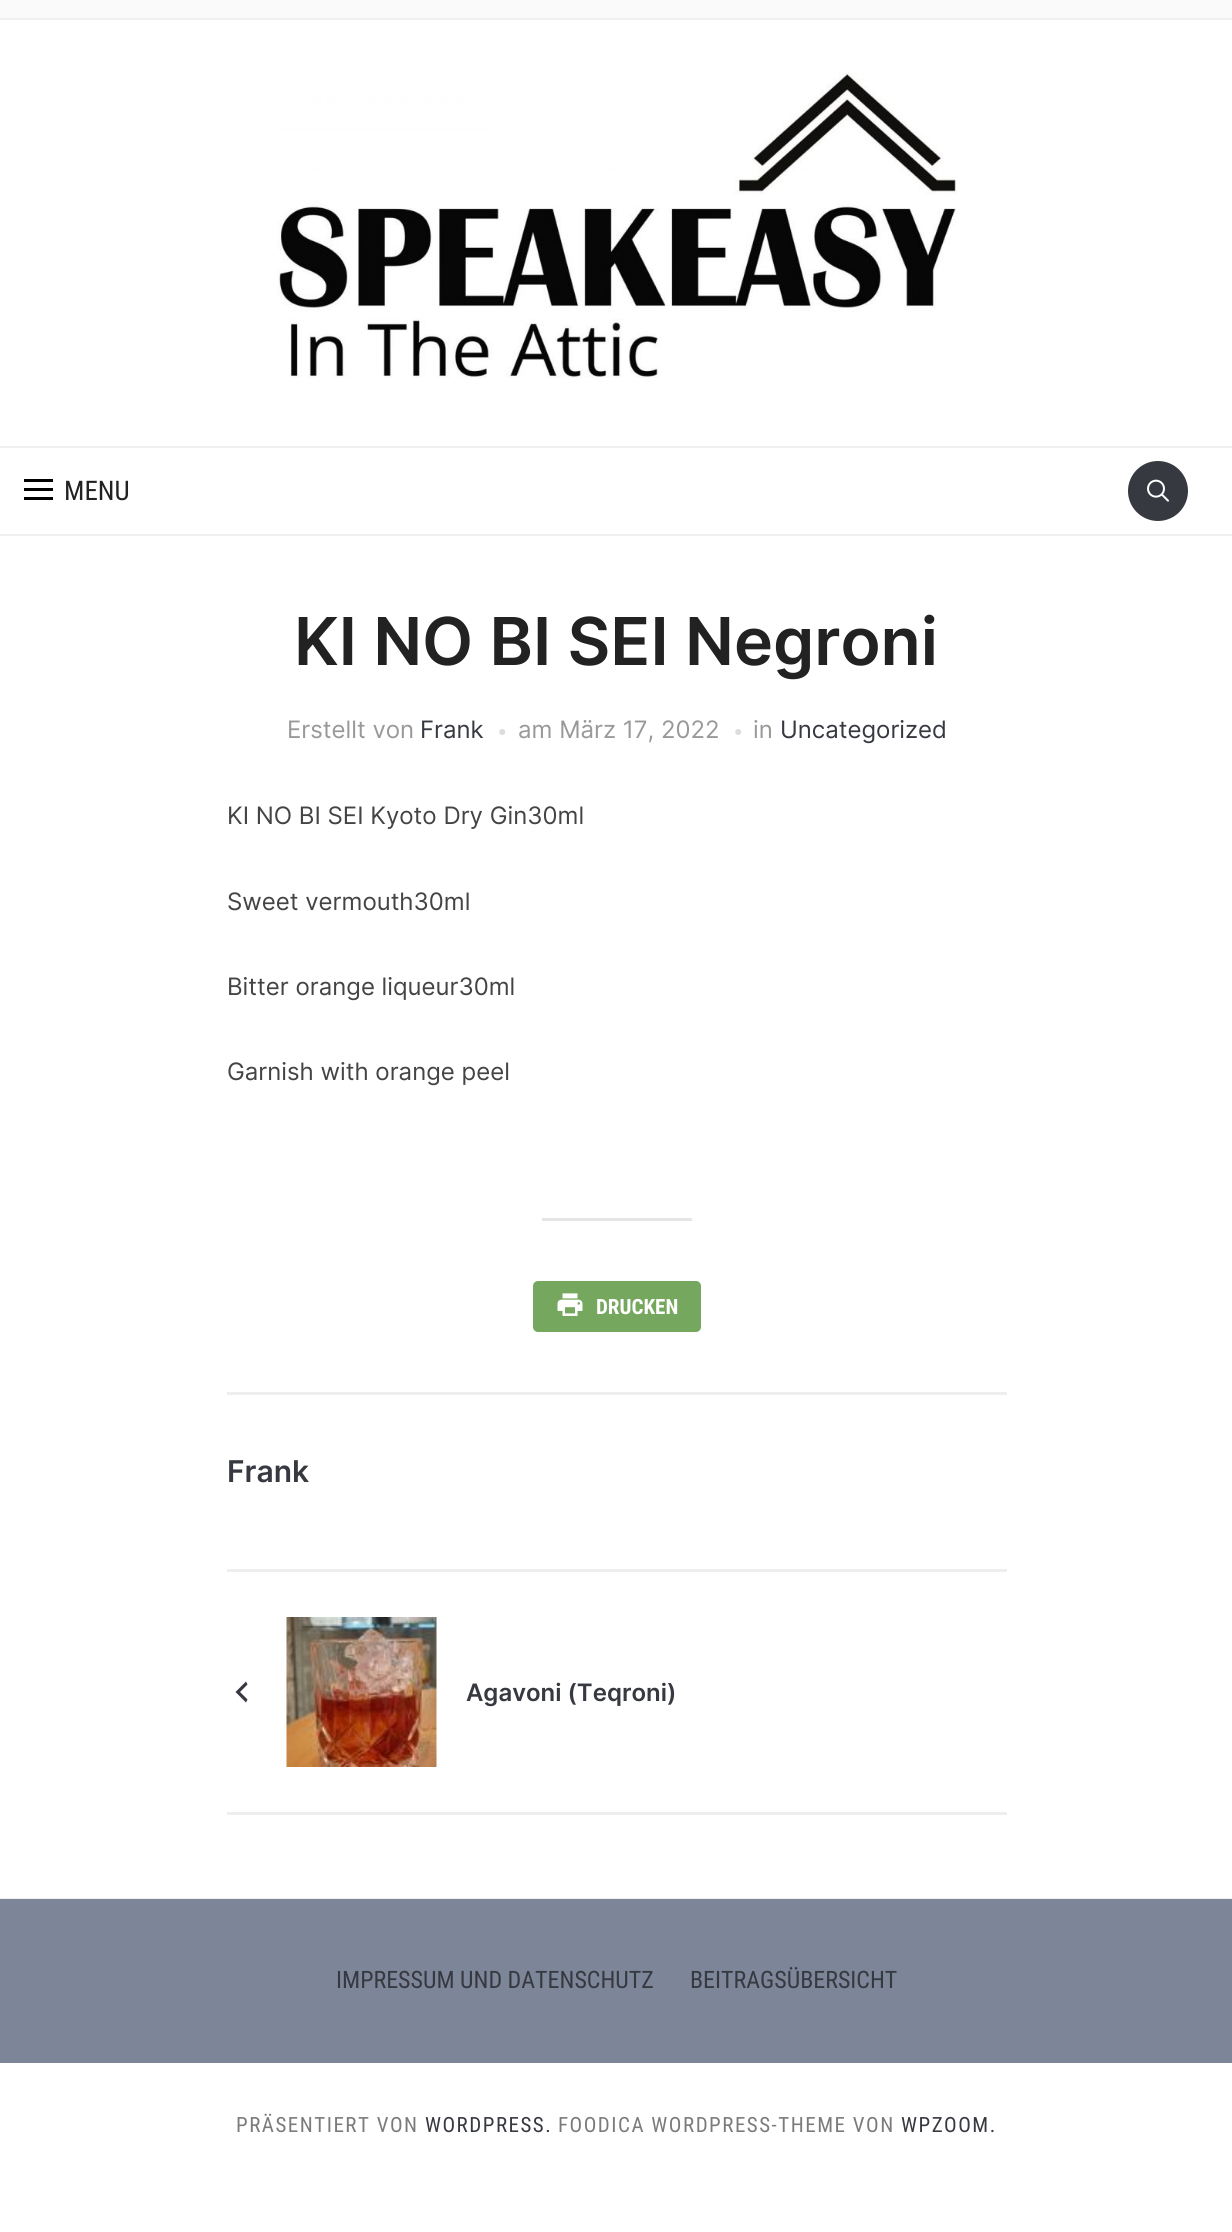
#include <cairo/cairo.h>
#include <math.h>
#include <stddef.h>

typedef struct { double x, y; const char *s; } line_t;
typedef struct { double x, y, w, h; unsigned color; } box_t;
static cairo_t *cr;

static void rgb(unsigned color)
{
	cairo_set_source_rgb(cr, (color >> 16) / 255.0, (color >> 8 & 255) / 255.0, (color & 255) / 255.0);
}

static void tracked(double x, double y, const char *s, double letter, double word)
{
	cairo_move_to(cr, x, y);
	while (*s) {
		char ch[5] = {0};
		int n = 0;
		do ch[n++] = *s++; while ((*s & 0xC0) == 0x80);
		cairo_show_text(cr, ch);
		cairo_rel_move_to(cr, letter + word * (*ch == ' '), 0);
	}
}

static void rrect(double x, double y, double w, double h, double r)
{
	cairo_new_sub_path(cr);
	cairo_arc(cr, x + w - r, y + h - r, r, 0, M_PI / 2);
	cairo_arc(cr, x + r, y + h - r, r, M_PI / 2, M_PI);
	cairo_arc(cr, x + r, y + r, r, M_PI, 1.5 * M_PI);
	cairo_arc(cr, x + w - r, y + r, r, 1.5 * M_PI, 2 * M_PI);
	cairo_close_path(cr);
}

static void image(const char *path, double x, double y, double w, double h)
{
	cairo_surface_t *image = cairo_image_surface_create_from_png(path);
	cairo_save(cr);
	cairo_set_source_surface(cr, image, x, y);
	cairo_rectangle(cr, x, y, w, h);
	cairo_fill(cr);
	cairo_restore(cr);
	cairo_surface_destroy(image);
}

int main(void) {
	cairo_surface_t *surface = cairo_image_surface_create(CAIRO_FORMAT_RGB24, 1232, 2232);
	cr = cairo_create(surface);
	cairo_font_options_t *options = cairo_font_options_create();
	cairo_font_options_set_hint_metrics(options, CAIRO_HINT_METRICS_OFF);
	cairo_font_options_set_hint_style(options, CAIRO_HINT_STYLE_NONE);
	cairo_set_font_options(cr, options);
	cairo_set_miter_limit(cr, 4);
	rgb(0xffffff);
	cairo_paint(cr);
	rgb(0xfafafa);
	cairo_rectangle(cr, 0, 0, 1232, 18);
	cairo_fill(cr);
	rgb(0xf0f0f0);
	cairo_rectangle(cr, 0, 18, 1232, 2);
	cairo_fill(cr);
	image("img/1.png", 277, 72, 680, 306);
	{
		static const box_t items[] = {
			{0, 446, 1232, 2, 0xf0f0f0},
			{0, 534, 1232, 2, 0xf0f0f0},
			{24, 479, 29, 3, 0x000000},
			{24, 488, 29, 3, 0x000000},
			{24, 497, 29, 3, 0x000000},
		};
		for (size_t i = 0; i < sizeof items / sizeof *items; i++) {
			rgb(items[i].color);
			cairo_rectangle(cr, items[i].x, items[i].y, items[i].w, items[i].h);
			cairo_fill(cr);
		}
	}
	rgb(0x363940);
	cairo_arc(cr, 1158, 491, 30, 0, 2 * M_PI);
	cairo_fill(cr);
	image("img/2.png", 1147, 479, 22, 23);
	rgb(0xe5e5e5);
	cairo_rectangle(cr, 542, 1218, 150, 3);
	cairo_fill(cr);
	rgb(0x76a75e);
	rrect(533, 1281, 168, 51, 5);
	cairo_fill(cr);
	image("img/3.png", 557, 1293, 26, 23);
	{
		static const box_t items[] = {
			{227, 1392, 780, 3, 0xeeeeee},
			{227, 1569, 780, 3, 0xeeeeee},
			{227, 1812, 780, 3, 0xeeeeee},
		};
		for (size_t i = 0; i < sizeof items / sizeof *items; i++) {
			rgb(items[i].color);
			cairo_rectangle(cr, items[i].x, items[i].y, items[i].w, items[i].h);
			cairo_fill(cr);
		}
	}
	rgb(0x363940);
	cairo_new_path(cr);
	cairo_move_to(cr, 247.5, 1684.5);
	cairo_line_to(cr, 240, 1692);
	cairo_line_to(cr, 247.5, 1699.5);
	cairo_line_to(cr, 246, 1702.5);
	cairo_line_to(cr, 235.5, 1692);
	cairo_line_to(cr, 246, 1681.5);
	cairo_close_path(cr);
	cairo_fill(cr);
	image("img/4.png", 286, 1617, 151, 150);
	rgb(0xf0f0f0);
	cairo_rectangle(cr, 0, 1898, 1232, 1);
	cairo_fill(cr);
	rgb(0x7d8599);
	cairo_rectangle(cr, 0, 1899, 1232, 164);
	cairo_fill(cr);
	cairo_select_font_face(cr, "Roboto Condensed", CAIRO_FONT_SLANT_NORMAL, CAIRO_FONT_WEIGHT_NORMAL);
	cairo_set_font_size(cr, 27);
	rgb(0x222222);
	cairo_move_to(cr, 64, 500);
	cairo_show_text(cr, "MENU");
	cairo_select_font_face(cr, "Inter SemiBold", CAIRO_FONT_SLANT_NORMAL, CAIRO_FONT_WEIGHT_NORMAL);
	cairo_set_font_size(cr, 66);
	cairo_move_to(cr, 294, 665);
	cairo_show_text(cr, "KI NO BI SEI Negroni");
	cairo_select_font_face(cr, "Inter", CAIRO_FONT_SLANT_NORMAL, CAIRO_FONT_WEIGHT_NORMAL);
	cairo_set_font_size(cr, 24);
	rgb(0x999999);
	cairo_move_to(cr, 287, 738);
	cairo_show_text(cr, "Erstellt von");
	rgb(0x363940);
	cairo_move_to(cr, 420, 738);
	cairo_show_text(cr, "Frank");
	cairo_select_font_face(cr, "Liberation Sans", CAIRO_FONT_SLANT_NORMAL, CAIRO_FONT_WEIGHT_NORMAL);
	cairo_set_font_size(cr, 14);
	rgb(0xdbdddd);
	cairo_move_to(cr, 498, 736);
	cairo_show_text(cr, "●");
	cairo_select_font_face(cr, "Inter", CAIRO_FONT_SLANT_NORMAL, CAIRO_FONT_WEIGHT_NORMAL);
	cairo_set_font_size(cr, 24);
	rgb(0x999999);
	cairo_move_to(cr, 518, 738);
	cairo_show_text(cr, "am März 17, 2022");
	cairo_select_font_face(cr, "Liberation Sans", CAIRO_FONT_SLANT_NORMAL, CAIRO_FONT_WEIGHT_NORMAL);
	cairo_set_font_size(cr, 14);
	rgb(0xdbdddd);
	cairo_move_to(cr, 734, 736);
	cairo_show_text(cr, "●");
	cairo_select_font_face(cr, "Inter", CAIRO_FONT_SLANT_NORMAL, CAIRO_FONT_WEIGHT_NORMAL);
	cairo_set_font_size(cr, 24);
	rgb(0x999999);
	cairo_move_to(cr, 753, 738);
	cairo_show_text(cr, "in");
	rgb(0x363940);
	cairo_move_to(cr, 780, 738);
	cairo_show_text(cr, "Uncategorized");
	rgb(0x444444);
	{
		static const line_t items[] = {
			{227, 824, "KI NO BI SEI Kyoto Dry Gin30ml"},
			{227, 910, "Sweet vermouth30ml"},
			{227, 995, "Bitter orange liqueur30ml"},
			{227, 1080, "Garnish with orange peel"},
		};
		for (size_t i = 0; i < sizeof items / sizeof *items; i++) {
			cairo_move_to(cr, items[i].x, items[i].y);
			cairo_show_text(cr, items[i].s);
		}
	}
	cairo_select_font_face(cr, "Roboto Condensed", CAIRO_FONT_SLANT_NORMAL, CAIRO_FONT_WEIGHT_BOLD);
	cairo_set_font_size(cr, 21);
	rgb(0xffffff);
	cairo_move_to(cr, 596, 1314);
	cairo_show_text(cr, "DRUCKEN");
	cairo_select_font_face(cr, "Inter SemiBold", CAIRO_FONT_SLANT_NORMAL, CAIRO_FONT_WEIGHT_NORMAL);
	cairo_set_font_size(cr, 30);
	rgb(0x363940);
	cairo_move_to(cr, 227, 1482);
	cairo_show_text(cr, "Frank");
	cairo_set_font_size(cr, 24);
	cairo_move_to(cr, 466, 1701);
	cairo_show_text(cr, "Agavoni (Teqroni)");
	cairo_select_font_face(cr, "Roboto Condensed", CAIRO_FONT_SLANT_NORMAL, CAIRO_FONT_WEIGHT_NORMAL);
	cairo_move_to(cr, 336, 1988);
	cairo_show_text(cr, "IMPRESSUM UND DATENSCHUTZ");
	cairo_move_to(cr, 690, 1988);
	cairo_show_text(cr, "BEITRAGSÜBERSICHT");
	cairo_set_font_size(cr, 21);
	rgb(0x7b7b7b);
	tracked(236, 2132, "PRÄSENTIERT VON", 1.5, 0);
	rgb(0x363940);
	tracked(425, 2132, "WORDPRESS.", 1.5, 0);
	rgb(0x7b7b7b);
	tracked(558, 2132, "FOODICA WORDPRESS-THEME VON", 1.5, 0);
	rgb(0x363940);
	tracked(901, 2132, "WPZOOM.", 1.5, 0);
	cairo_surface_write_to_png(surface, "page.png");
	cairo_font_options_destroy(options);
	cairo_destroy(cr);
	cairo_surface_destroy(surface);
	return 0;
}
